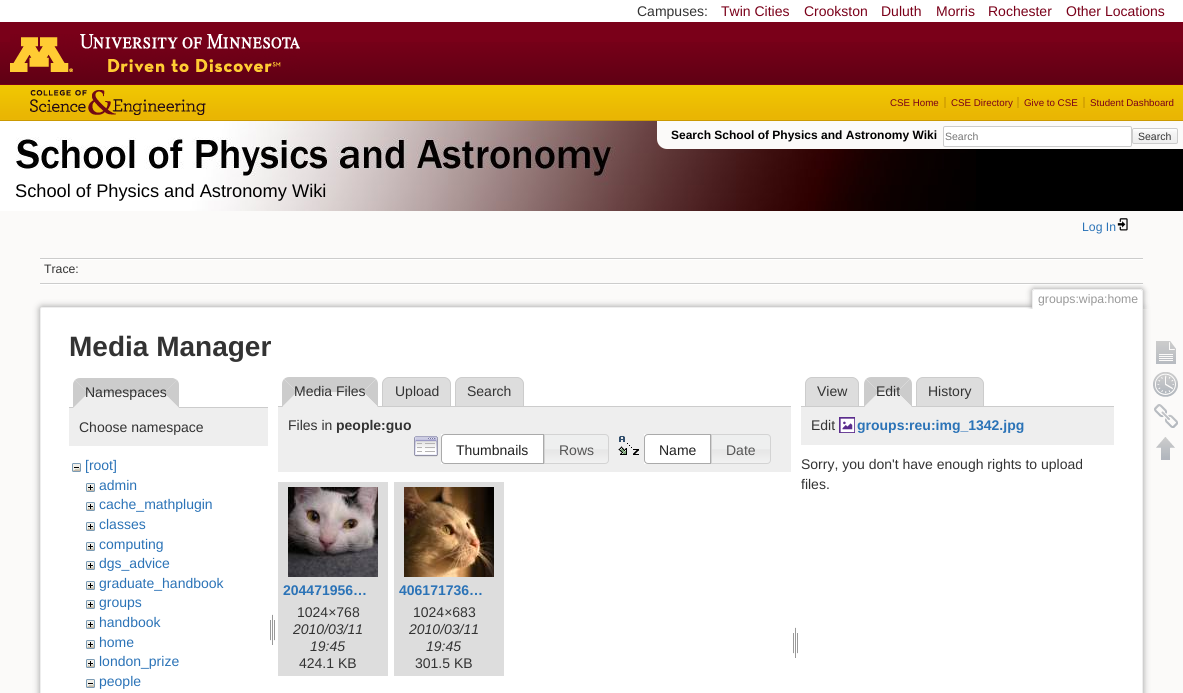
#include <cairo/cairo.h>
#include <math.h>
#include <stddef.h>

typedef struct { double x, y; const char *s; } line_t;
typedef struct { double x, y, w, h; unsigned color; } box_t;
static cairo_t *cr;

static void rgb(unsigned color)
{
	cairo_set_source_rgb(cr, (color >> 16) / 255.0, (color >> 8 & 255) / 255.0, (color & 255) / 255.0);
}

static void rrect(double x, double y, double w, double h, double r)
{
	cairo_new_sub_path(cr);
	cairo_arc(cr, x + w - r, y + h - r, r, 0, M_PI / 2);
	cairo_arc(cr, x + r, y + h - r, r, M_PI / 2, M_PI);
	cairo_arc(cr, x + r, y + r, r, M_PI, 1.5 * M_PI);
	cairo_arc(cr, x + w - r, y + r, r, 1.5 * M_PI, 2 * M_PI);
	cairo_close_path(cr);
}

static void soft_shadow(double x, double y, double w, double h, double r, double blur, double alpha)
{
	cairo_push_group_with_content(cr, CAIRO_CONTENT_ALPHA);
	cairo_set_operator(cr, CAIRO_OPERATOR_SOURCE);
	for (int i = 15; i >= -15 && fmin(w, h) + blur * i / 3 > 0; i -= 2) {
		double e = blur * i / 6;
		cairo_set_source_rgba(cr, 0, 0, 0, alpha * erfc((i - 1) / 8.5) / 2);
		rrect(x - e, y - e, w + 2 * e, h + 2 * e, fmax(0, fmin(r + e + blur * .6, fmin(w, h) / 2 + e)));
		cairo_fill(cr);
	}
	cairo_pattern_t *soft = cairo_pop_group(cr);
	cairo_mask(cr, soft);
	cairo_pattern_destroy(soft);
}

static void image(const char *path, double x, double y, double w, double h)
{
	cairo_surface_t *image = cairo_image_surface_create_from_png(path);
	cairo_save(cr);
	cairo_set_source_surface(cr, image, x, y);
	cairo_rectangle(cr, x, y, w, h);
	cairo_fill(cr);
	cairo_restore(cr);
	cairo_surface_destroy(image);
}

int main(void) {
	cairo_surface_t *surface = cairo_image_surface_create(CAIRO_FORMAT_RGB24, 1183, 693);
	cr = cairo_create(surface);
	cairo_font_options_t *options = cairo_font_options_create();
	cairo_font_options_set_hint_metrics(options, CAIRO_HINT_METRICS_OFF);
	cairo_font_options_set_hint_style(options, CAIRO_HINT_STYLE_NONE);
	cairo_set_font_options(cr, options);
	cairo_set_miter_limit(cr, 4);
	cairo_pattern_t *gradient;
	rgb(0xfbfaf9);
	cairo_paint(cr);
	rgb(0xffffff);
	cairo_rectangle(cr, 0, 0, 1183, 22);
	cairo_fill(cr);
	rgb(0x7a0019);
	cairo_rectangle(cr, 0, 22, 1183, 63);
	cairo_fill(cr);
	image("img/1.png", 0, 42, 1183, 42);
	image("img/2.png", 10, 34, 290, 38);
	image("img/3.png", 0, 85, 1183, 35);
	rgb(0xcb9901);
	cairo_rectangle(cr, 0, 120, 1183, 1);
	cairo_fill(cr);
	image("img/4.png", 30, 90, 176, 25);
	{
		static const box_t items[] = {
			{944, 97, 2, 11, 0xd7a602},
			{1017, 97, 2, 11, 0xd7a602},
			{1083, 97, 2, 11, 0xd7a602},
			{976, 149, 207, 62, 0x000000},
		};
		for (size_t i = 0; i < sizeof items / sizeof *items; i++) {
			rgb(items[i].color);
			cairo_rectangle(cr, items[i].x, items[i].y, items[i].w, items[i].h);
			cairo_fill(cr);
		}
	}
	image("img/5.png", 0, 121, 976, 90);
	rgb(0xfbfaf9);
	cairo_new_path(cr);
	cairo_move_to(cr, 657, 121);
	cairo_line_to(cr, 1183, 121);
	cairo_line_to(cr, 1183, 149);
	cairo_line_to(cr, 667, 149);
	cairo_curve_to(cr, 661.5, 149, 657, 144.5, 657, 139);
	cairo_close_path(cr);
	cairo_fill(cr);
	rgb(0xffffff);
	rrect(943.5, 126.5, 188, 20, 1.5);
	cairo_fill_preserve(cr);
	rgb(0xcccccc);
	cairo_set_line_width(cr, 1);
	cairo_stroke(cr);
	cairo_save(cr);
	rrect(1132, 128, 46, 16, 2);
	cairo_clip(cr);
	gradient = cairo_pattern_create_linear(1155, 129, 1155, 143);
	cairo_pattern_add_color_stop_rgba(gradient, 0, 1, 1, 1, 1);
	cairo_pattern_add_color_stop_rgba(gradient, 0.3, 0.957, 0.957, 0.957, 1);
	cairo_pattern_add_color_stop_rgba(gradient, 0.99, 0.933, 0.933, 0.933, 1);
	cairo_pattern_add_color_stop_rgba(gradient, 0.99, 0.8, 0.8, 0.8, 1);
	cairo_set_source(cr, gradient);
	cairo_pattern_destroy(gradient);
	cairo_rectangle(cr, 1132, 129, 46, 14);
	cairo_fill(cr);
	cairo_restore(cr);
	rrect(1132.5, 128.5, 45, 15, 1.5);
	cairo_stroke(cr);
	image("img/6.png", 1117, 218, 11, 13);
	{
		static const box_t items[] = {
			{40, 258, 1103, 1, 0xcccccc},
			{40, 284, 1103, 1, 0xffffff},
			{40, 259, 1103, 1, 0xffffff},
			{40, 283, 1103, 1, 0xcccccc},
		};
		for (size_t i = 0; i < sizeof items / sizeof *items; i++) {
			rgb(items[i].color);
			cairo_rectangle(cr, items[i].x, items[i].y, items[i].w, items[i].h);
			cairo_fill(cr);
		}
	}
	rgb(0x999999);
	soft_shadow(40, 307, 1103, 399, 2, 3.5, 1);
	rgb(0xffffff);
	rrect(40.5, 307.5, 1102, 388, 1.5);
	cairo_fill_preserve(cr);
	rgb(0xeeeeee);
	cairo_stroke(cr);
	cairo_save(cr);
	cairo_rectangle(cr, 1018, 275, 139, 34);
	cairo_clip(cr);
	rgb(0x999999);
	soft_shadow(1032, 289, 111, 20, 2, 3, 1);
	cairo_restore(cr);
	rgb(0xffffff);
	cairo_new_path(cr);
	cairo_move_to(cr, 1034, 290);
	cairo_line_to(cr, 1141, 290);
	cairo_curve_to(cr, 1141.5, 290, 1142, 290.5, 1142, 291);
	cairo_line_to(cr, 1142, 309);
	cairo_line_to(cr, 1033, 309);
	cairo_line_to(cr, 1033, 291);
	cairo_curve_to(cr, 1033, 290.5, 1033.5, 290, 1034, 290);
	cairo_close_path(cr);
	cairo_fill(cr);
	{
		static const box_t items[] = {
			{1033, 289, 109, 1, 0xeeeeee},
			{1142, 290, 1, 19, 0xeeeeee},
			{1032, 290, 1, 19, 0xeeeeee},
			{69, 407, 199, 1, 0xcccccc},
		};
		for (size_t i = 0; i < sizeof items / sizeof *items; i++) {
			rgb(items[i].color);
			cairo_rectangle(cr, items[i].x, items[i].y, items[i].w, items[i].h);
			cairo_fill(cr);
		}
	}
	rgb(0xeeeeee);
	cairo_new_path(cr);
	cairo_move_to(cr, 80, 378);
	cairo_line_to(cr, 172, 378);
	cairo_curve_to(cr, 176, 378, 179, 381, 179, 385);
	cairo_line_to(cr, 179, 408);
	cairo_line_to(cr, 73, 408);
	cairo_line_to(cr, 73, 385);
	cairo_curve_to(cr, 73, 381, 76, 378, 80, 378);
	cairo_close_path(cr);
	cairo_fill(cr);
	rgb(0xcccccc);
	cairo_new_path(cr);
	cairo_move_to(cr, 80, 378);
	cairo_line_to(cr, 173, 378);
	cairo_line_to(cr, 177, 380);
	cairo_line_to(cr, 164, 393);
	cairo_line_to(cr, 88, 393);
	cairo_line_to(cr, 75, 380);
	cairo_curve_to(cr, 76, 379, 78, 378, 80, 378);
	cairo_close_path(cr);
	cairo_fill(cr);
	cairo_new_path(cr);
	cairo_move_to(cr, 177, 380);
	cairo_line_to(cr, 164, 393);
	cairo_line_to(cr, 179, 408);
	cairo_line_to(cr, 179, 385);
	cairo_curve_to(cr, 179, 383, 178, 381, 177, 380);
	cairo_close_path(cr);
	cairo_fill(cr);
	rgb(0xeeeeee);
	cairo_new_path(cr);
	cairo_move_to(cr, 179, 408);
	cairo_line_to(cr, 164, 393);
	cairo_line_to(cr, 88, 393);
	cairo_line_to(cr, 73, 408);
	cairo_close_path(cr);
	cairo_fill(cr);
	rgb(0xcccccc);
	cairo_new_path(cr);
	cairo_move_to(cr, 73, 408);
	cairo_line_to(cr, 73, 385);
	cairo_curve_to(cr, 73, 383, 74, 381, 75, 380);
	cairo_line_to(cr, 88, 393);
	cairo_close_path(cr);
	cairo_fill(cr);
	rgb(0xeeeeee);
	cairo_rectangle(cr, 69, 408, 199, 38);
	cairo_fill(cr);
	image("img/7.png", 72, 463, 9, 9);
	image("img/8.png", 86, 483, 9, 9);
	image("img/8.png", 86, 502, 9, 9);
	image("img/8.png", 86, 522, 9, 9);
	image("img/8.png", 86, 542, 9, 9);
	image("img/8.png", 86, 561, 9, 9);
	image("img/8.png", 86, 581, 9, 9);
	image("img/8.png", 86, 600, 9, 9);
	image("img/8.png", 86, 620, 9, 9);
	image("img/8.png", 86, 640, 9, 9);
	image("img/8.png", 86, 659, 9, 9);
	image("img/7.png", 86, 679, 9, 9);
	image("img/9.png", 270, 614, 5, 31);
	rgb(0xcccccc);
	cairo_new_path(cr);
	cairo_move_to(cr, 289, 377);
	cairo_line_to(cr, 371, 377);
	cairo_curve_to(cr, 373, 377, 375, 378, 376, 379);
	cairo_line_to(cr, 363, 392);
	cairo_line_to(cr, 297, 392);
	cairo_line_to(cr, 284, 379);
	cairo_curve_to(cr, 285, 378, 287, 377, 289, 377);
	cairo_close_path(cr);
	cairo_fill(cr);
	rgb(0xdddddd);
	cairo_new_path(cr);
	cairo_move_to(cr, 389, 377.5);
	cairo_line_to(cr, 444, 377.5);
	cairo_curve_to(cr, 447.5, 377.5, 450.5, 380.5, 450.5, 384);
	cairo_line_to(cr, 450.5, 406.5);
	cairo_line_to(cr, 382.5, 406.5);
	cairo_line_to(cr, 382.5, 384);
	cairo_curve_to(cr, 382.5, 380.5, 385.5, 377.5, 389, 377.5);
	cairo_close_path(cr);
	cairo_fill_preserve(cr);
	rgb(0xcccccc);
	cairo_stroke(cr);
	rgb(0xdddddd);
	cairo_new_path(cr);
	cairo_move_to(cr, 462, 377.5);
	cairo_line_to(cr, 517, 377.5);
	cairo_curve_to(cr, 520.5, 377.5, 523.5, 380.5, 523.5, 384);
	cairo_line_to(cr, 523.5, 406.5);
	cairo_line_to(cr, 455.5, 406.5);
	cairo_line_to(cr, 455.5, 384);
	cairo_curve_to(cr, 455.5, 380.5, 458.5, 377.5, 462, 377.5);
	cairo_close_path(cr);
	cairo_fill_preserve(cr);
	rgb(0xcccccc);
	cairo_stroke(cr);
	cairo_rectangle(cr, 278, 406, 513, 1);
	cairo_fill(cr);
	cairo_new_path(cr);
	cairo_move_to(cr, 376, 379);
	cairo_line_to(cr, 363, 392);
	cairo_line_to(cr, 378, 407);
	cairo_line_to(cr, 378, 384);
	cairo_curve_to(cr, 378, 382, 377, 380, 376, 379);
	cairo_close_path(cr);
	cairo_fill(cr);
	rgb(0xeeeeee);
	cairo_new_path(cr);
	cairo_move_to(cr, 378, 407);
	cairo_line_to(cr, 363, 392);
	cairo_line_to(cr, 297, 392);
	cairo_line_to(cr, 282, 407);
	cairo_close_path(cr);
	cairo_fill(cr);
	rgb(0xcccccc);
	cairo_new_path(cr);
	cairo_move_to(cr, 282, 407);
	cairo_line_to(cr, 282, 384);
	cairo_curve_to(cr, 282, 382, 283, 380, 284, 379);
	cairo_line_to(cr, 297, 392);
	cairo_close_path(cr);
	cairo_fill(cr);
	rgb(0xeeeeee);
	cairo_rectangle(cr, 278, 407, 513, 65);
	cairo_fill(cr);
	image("img/10.png", 414, 436, 24, 21);
	rgb(0xffffff);
	cairo_rectangle(cr, 441, 434, 102, 30);
	cairo_fill(cr);
	cairo_new_path(cr);
	cairo_move_to(cr, 445, 434.5);
	cairo_line_to(cr, 543.5, 434.5);
	cairo_line_to(cr, 543.5, 463.5);
	cairo_line_to(cr, 445, 463.5);
	cairo_curve_to(cr, 443, 463.5, 441.5, 462, 441.5, 460);
	cairo_line_to(cr, 441.5, 438);
	cairo_curve_to(cr, 441.5, 436, 443, 434.5, 445, 434.5);
	cairo_close_path(cr);
	rgb(0xaaaaaa);
	cairo_stroke(cr);
	image("img/11.png", 545, 434, 64, 30);
	cairo_new_path(cr);
	cairo_move_to(cr, 544.5, 434.5);
	cairo_line_to(cr, 605, 434.5);
	cairo_curve_to(cr, 607, 434.5, 608.5, 436, 608.5, 438);
	cairo_line_to(cr, 608.5, 460);
	cairo_curve_to(cr, 608.5, 462, 607, 463.5, 605, 463.5);
	cairo_line_to(cr, 544.5, 463.5);
	cairo_close_path(cr);
	rgb(0xd3d3d3);
	cairo_stroke(cr);
	image("img/12.png", 618, 436, 21, 19);
	rgb(0xffffff);
	cairo_rectangle(cr, 644, 434, 66, 30);
	cairo_fill(cr);
	cairo_new_path(cr);
	cairo_move_to(cr, 648, 434.5);
	cairo_line_to(cr, 710.5, 434.5);
	cairo_line_to(cr, 710.5, 463.5);
	cairo_line_to(cr, 648, 463.5);
	cairo_curve_to(cr, 646, 463.5, 644.5, 462, 644.5, 460);
	cairo_line_to(cr, 644.5, 438);
	cairo_curve_to(cr, 644.5, 436, 646, 434.5, 648, 434.5);
	cairo_close_path(cr);
	rgb(0xaaaaaa);
	cairo_stroke(cr);
	image("img/13.png", 712, 434, 59, 30);
	cairo_new_path(cr);
	cairo_move_to(cr, 711.5, 434.5);
	cairo_line_to(cr, 767, 434.5);
	cairo_curve_to(cr, 769, 434.5, 770.5, 436, 770.5, 438);
	cairo_line_to(cr, 770.5, 460);
	cairo_curve_to(cr, 770.5, 462, 769, 463.5, 767, 463.5);
	cairo_line_to(cr, 711.5, 463.5);
	cairo_close_path(cr);
	rgb(0xd3d3d3);
	cairo_stroke(cr);
	rgb(0xdddddd);
	cairo_rectangle(cr, 278, 482, 110, 194);
	cairo_fill(cr);
	image("img/14.png", 288, 487, 90, 90);
	cairo_rectangle(cr, 394, 482, 110, 194);
	cairo_fill(cr);
	image("img/15.png", 404, 487, 90, 90);
	image("img/9.png", 793, 627, 5, 31);
	cairo_new_path(cr);
	cairo_move_to(cr, 812, 377.5);
	cairo_line_to(cr, 852, 377.5);
	cairo_curve_to(cr, 855.5, 377.5, 858.5, 380.5, 858.5, 384);
	cairo_line_to(cr, 858.5, 406.5);
	cairo_line_to(cr, 805.5, 406.5);
	cairo_line_to(cr, 805.5, 384);
	cairo_curve_to(cr, 805.5, 380.5, 808.5, 377.5, 812, 377.5);
	cairo_close_path(cr);
	cairo_fill_preserve(cr);
	rgb(0xcccccc);
	cairo_stroke(cr);
	cairo_new_path(cr);
	cairo_move_to(cr, 871, 377);
	cairo_line_to(cr, 905, 377);
	cairo_curve_to(cr, 907, 377, 909, 378, 910, 379);
	cairo_line_to(cr, 897, 392);
	cairo_line_to(cr, 879, 392);
	cairo_line_to(cr, 866, 379);
	cairo_curve_to(cr, 867, 378, 869, 377, 871, 377);
	cairo_close_path(cr);
	cairo_fill(cr);
	rgb(0xdddddd);
	cairo_new_path(cr);
	cairo_move_to(cr, 923, 377.5);
	cairo_line_to(cr, 977, 377.5);
	cairo_curve_to(cr, 980.5, 377.5, 983.5, 380.5, 983.5, 384);
	cairo_line_to(cr, 983.5, 406.5);
	cairo_line_to(cr, 916.5, 406.5);
	cairo_line_to(cr, 916.5, 384);
	cairo_curve_to(cr, 916.5, 380.5, 919.5, 377.5, 923, 377.5);
	cairo_close_path(cr);
	cairo_fill_preserve(cr);
	rgb(0xcccccc);
	cairo_stroke(cr);
	cairo_rectangle(cr, 801, 406, 313, 1);
	cairo_fill(cr);
	cairo_new_path(cr);
	cairo_move_to(cr, 910, 379);
	cairo_line_to(cr, 897, 392);
	cairo_line_to(cr, 912, 407);
	cairo_line_to(cr, 912, 384);
	cairo_curve_to(cr, 912, 382, 911, 380, 910, 379);
	cairo_close_path(cr);
	cairo_fill(cr);
	rgb(0xeeeeee);
	cairo_new_path(cr);
	cairo_move_to(cr, 912, 407);
	cairo_line_to(cr, 897, 392);
	cairo_line_to(cr, 879, 392);
	cairo_line_to(cr, 864, 407);
	cairo_close_path(cr);
	cairo_fill(cr);
	rgb(0xcccccc);
	cairo_new_path(cr);
	cairo_move_to(cr, 864, 407);
	cairo_line_to(cr, 864, 384);
	cairo_curve_to(cr, 864, 382, 865, 380, 866, 379);
	cairo_line_to(cr, 879, 392);
	cairo_close_path(cr);
	cairo_fill(cr);
	rgb(0xeeeeee);
	cairo_rectangle(cr, 801, 407, 313, 38);
	cairo_fill(cr);
	image("img/16.png", 839, 417, 16, 16);
	image("img/17.png", 1156, 341, 20, 23);
	image("img/18.png", 1153, 372, 25, 25);
	image("img/19.png", 1154, 404, 24, 24);
	image("img/20.png", 1156, 437, 19, 23);
	cairo_select_font_face(cr, "Liberation Sans", CAIRO_FONT_SLANT_NORMAL, CAIRO_FONT_WEIGHT_NORMAL);
	cairo_set_font_size(cr, 14);
	rgb(0x333333);
	cairo_move_to(cr, 637, 16);
	cairo_show_text(cr, "Campuses:");
	rgb(0x7a0019);
	{
		static const line_t items[] = {
			{721, 16, "Twin Cities"},
			{804, 16, "Crookston"},
			{881, 16, "Duluth"},
			{936, 16, "Morris"},
			{988, 16, "Rochester"},
			{1066, 16, "Other Locations"},
		};
		for (size_t i = 0; i < sizeof items / sizeof *items; i++) {
			cairo_move_to(cr, items[i].x, items[i].y);
			cairo_show_text(cr, items[i].s);
		}
	}
	cairo_set_font_size(cr, 9.75);
	{
		static const line_t items[] = {
			{890, 106, "CSE Home"},
			{951, 106, "CSE Directory"},
			{1024, 106, "Give to CSE"},
			{1090, 106, "Student Dashboard"},
		};
		for (size_t i = 0; i < sizeof items / sizeof *items; i++) {
			cairo_move_to(cr, items[i].x, items[i].y);
			cairo_show_text(cr, items[i].s);
		}
	}
	cairo_select_font_face(cr, "Liberation Sans", CAIRO_FONT_SLANT_NORMAL, CAIRO_FONT_WEIGHT_BOLD);
	cairo_set_font_size(cr, 12);
	rgb(0x000000);
	cairo_move_to(cr, 671, 139);
	cairo_show_text(cr, "Search School of Physics and Astronomy Wiki");
	cairo_select_font_face(cr, "Liberation Sans", CAIRO_FONT_SLANT_NORMAL, CAIRO_FONT_WEIGHT_NORMAL);
	cairo_set_font_size(cr, 10.5);
	rgb(0x757575);
	cairo_move_to(cr, 945, 140);
	cairo_show_text(cr, "Search");
	rgb(0x333333);
	cairo_move_to(cr, 1138, 140);
	cairo_show_text(cr, "Search");
	cairo_set_font_size(cr, 18.25);
	rgb(0x000000);
	cairo_move_to(cr, 15, 197);
	cairo_show_text(cr, "School of Physics and Astronomy Wiki");
	cairo_set_font_size(cr, 12.25);
	rgb(0x2b73b7);
	cairo_move_to(cr, 1082, 231);
	cairo_show_text(cr, "Log In");
	rgb(0x333333);
	cairo_move_to(cr, 44, 273);
	cairo_show_text(cr, "Trace:");
	rgb(0x999999);
	cairo_move_to(cr, 1038, 303);
	cairo_show_text(cr, "groups:wipa:home");
	cairo_select_font_face(cr, "Liberation Sans", CAIRO_FONT_SLANT_NORMAL, CAIRO_FONT_WEIGHT_BOLD);
	cairo_set_font_size(cr, 28);
	rgb(0x333333);
	cairo_move_to(cr, 69, 356);
	cairo_show_text(cr, "Media Manager");
	cairo_select_font_face(cr, "Liberation Sans", CAIRO_FONT_SLANT_NORMAL, CAIRO_FONT_WEIGHT_NORMAL);
	cairo_set_font_size(cr, 14);
	cairo_move_to(cr, 85, 397);
	cairo_show_text(cr, "Namespaces");
	cairo_move_to(cr, 79, 432);
	cairo_show_text(cr, "Choose namespace");
	rgb(0x2b73b7);
	{
		static const line_t items[] = {
			{85, 470, "[root]"},
			{99, 490, "admin"},
			{99, 509, "cache_mathplugin"},
			{99, 529, "classes"},
			{99, 549, "computing"},
			{99, 568, "dgs_advice"},
			{99, 588, "graduate_handbook"},
			{99, 607, "groups"},
			{99, 627, "handbook"},
			{99, 647, "home"},
			{99, 666, "london_prize"},
			{99, 686, "people"},
		};
		for (size_t i = 0; i < sizeof items / sizeof *items; i++) {
			cairo_move_to(cr, items[i].x, items[i].y);
			cairo_show_text(cr, items[i].s);
		}
	}
	rgb(0x333333);
	{
		static const line_t items[] = {
			{294, 396, "Media Files"},
			{395, 396, "Upload"},
			{467, 396, "Search"},
			{288, 430, "Files in"},
		};
		for (size_t i = 0; i < sizeof items / sizeof *items; i++) {
			cairo_move_to(cr, items[i].x, items[i].y);
			cairo_show_text(cr, items[i].s);
		}
	}
	cairo_select_font_face(cr, "Liberation Sans", CAIRO_FONT_SLANT_NORMAL, CAIRO_FONT_WEIGHT_BOLD);
	cairo_move_to(cr, 336, 430);
	cairo_show_text(cr, "people:guo");
	cairo_select_font_face(cr, "Liberation Sans", CAIRO_FONT_SLANT_NORMAL, CAIRO_FONT_WEIGHT_NORMAL);
	rgb(0x212121);
	cairo_move_to(cr, 456, 455);
	cairo_show_text(cr, "Thumbnails");
	rgb(0x555555);
	cairo_move_to(cr, 559, 455);
	cairo_show_text(cr, "Rows");
	rgb(0x212121);
	cairo_move_to(cr, 659, 455);
	cairo_show_text(cr, "Name");
	rgb(0x555555);
	cairo_move_to(cr, 726, 455);
	cairo_show_text(cr, "Date");
	cairo_select_font_face(cr, "Liberation Sans", CAIRO_FONT_SLANT_NORMAL, CAIRO_FONT_WEIGHT_BOLD);
	rgb(0x2b73b7);
	cairo_move_to(cr, 283, 595);
	cairo_show_text(cr, "204471956…");
	cairo_select_font_face(cr, "Liberation Sans", CAIRO_FONT_SLANT_NORMAL, CAIRO_FONT_WEIGHT_NORMAL);
	rgb(0x333333);
	cairo_move_to(cr, 297, 617);
	cairo_show_text(cr, "1024×768");
	cairo_select_font_face(cr, "Liberation Sans", CAIRO_FONT_SLANT_ITALIC, CAIRO_FONT_WEIGHT_NORMAL);
	cairo_move_to(cr, 293, 634);
	cairo_show_text(cr, "2010/03/11");
	cairo_move_to(cr, 310, 651);
	cairo_show_text(cr, "19:45");
	cairo_select_font_face(cr, "Liberation Sans", CAIRO_FONT_SLANT_NORMAL, CAIRO_FONT_WEIGHT_NORMAL);
	cairo_move_to(cr, 299, 668);
	cairo_show_text(cr, "424.1 KB");
	cairo_select_font_face(cr, "Liberation Sans", CAIRO_FONT_SLANT_NORMAL, CAIRO_FONT_WEIGHT_BOLD);
	rgb(0x2b73b7);
	cairo_move_to(cr, 399, 595);
	cairo_show_text(cr, "406171736…");
	cairo_select_font_face(cr, "Liberation Sans", CAIRO_FONT_SLANT_NORMAL, CAIRO_FONT_WEIGHT_NORMAL);
	rgb(0x333333);
	cairo_move_to(cr, 413, 617);
	cairo_show_text(cr, "1024×683");
	cairo_select_font_face(cr, "Liberation Sans", CAIRO_FONT_SLANT_ITALIC, CAIRO_FONT_WEIGHT_NORMAL);
	cairo_move_to(cr, 409, 634);
	cairo_show_text(cr, "2010/03/11");
	cairo_move_to(cr, 426, 651);
	cairo_show_text(cr, "19:45");
	cairo_select_font_face(cr, "Liberation Sans", CAIRO_FONT_SLANT_NORMAL, CAIRO_FONT_WEIGHT_NORMAL);
	{
		static const line_t items[] = {
			{415, 668, "301.5 KB"},
			{817, 396, "View"},
			{876, 396, "Edit"},
			{928, 396, "History"},
			{811, 430, "Edit"},
		};
		for (size_t i = 0; i < sizeof items / sizeof *items; i++) {
			cairo_move_to(cr, items[i].x, items[i].y);
			cairo_show_text(cr, items[i].s);
		}
	}
	cairo_select_font_face(cr, "Liberation Sans", CAIRO_FONT_SLANT_NORMAL, CAIRO_FONT_WEIGHT_BOLD);
	rgb(0x2b73b7);
	cairo_move_to(cr, 857, 430);
	cairo_show_text(cr, "groups:reu:img_1342.jpg");
	cairo_select_font_face(cr, "Liberation Sans", CAIRO_FONT_SLANT_NORMAL, CAIRO_FONT_WEIGHT_NORMAL);
	rgb(0x333333);
	cairo_move_to(cr, 801, 469);
	cairo_show_text(cr, "Sorry, you don't have enough rights to upload");
	cairo_move_to(cr, 801, 489);
	cairo_show_text(cr, "files.");
	cairo_surface_write_to_png(surface, "page.png");
	cairo_font_options_destroy(options);
	cairo_destroy(cr);
	cairo_surface_destroy(surface);
	return 0;
}
